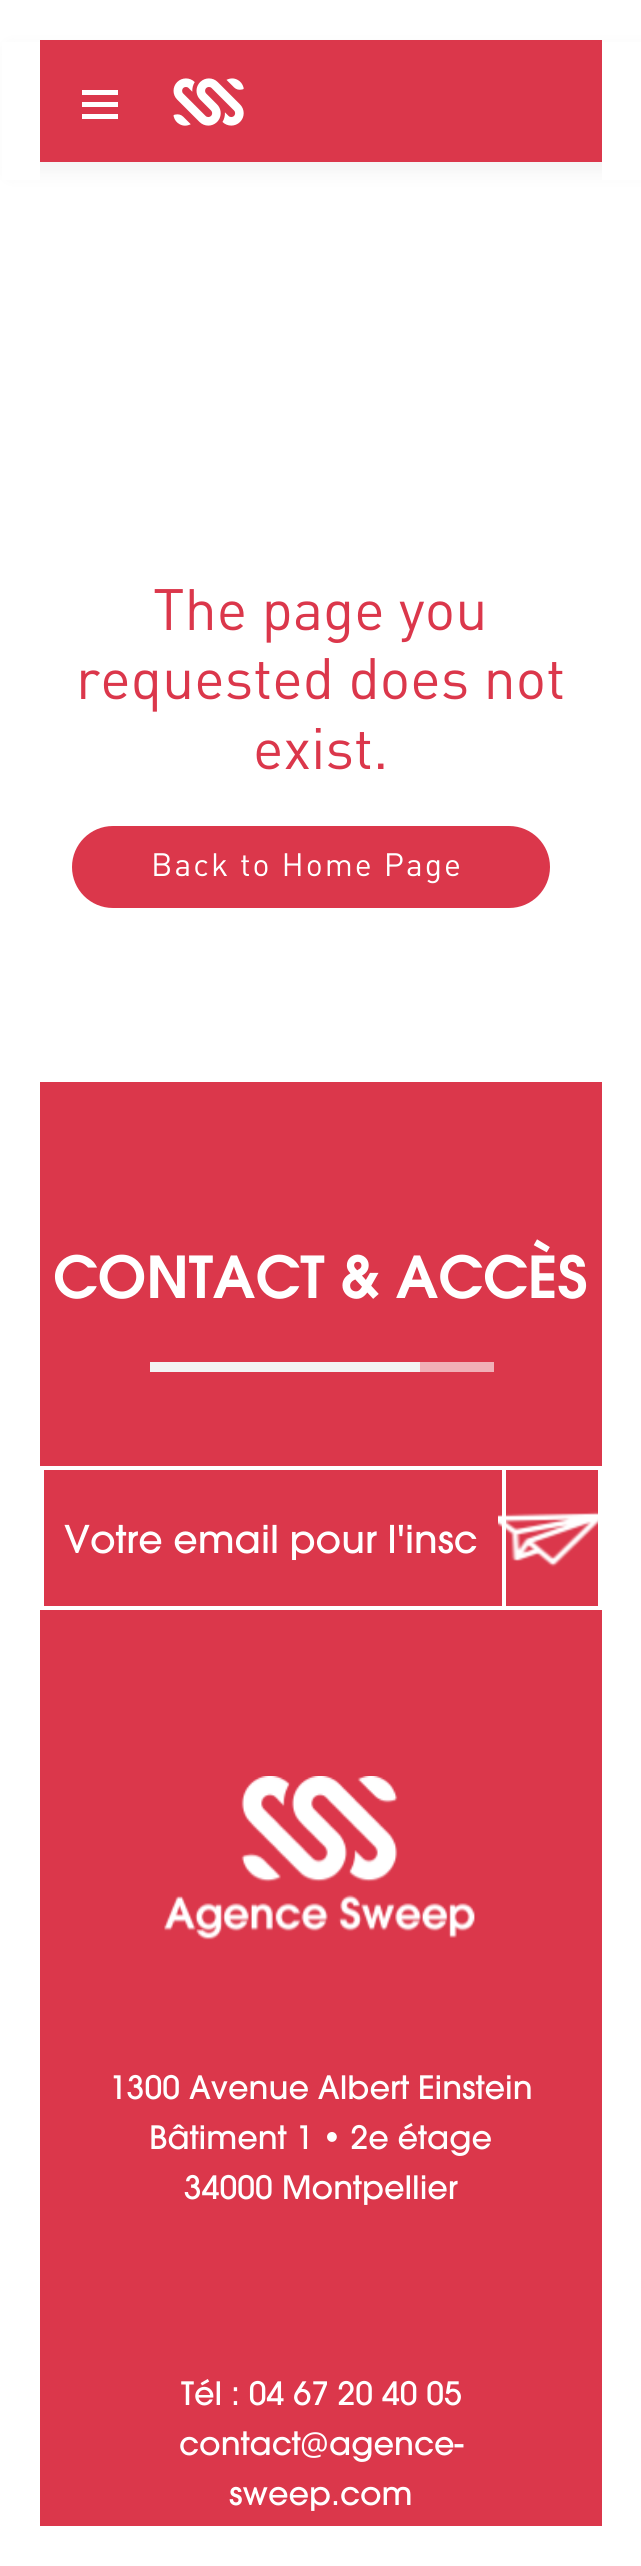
#include <cairo/cairo.h>
#include <math.h>
#include <stddef.h>

typedef struct { double x, y; const char *s; } line_t;
typedef struct { double x, y, w, h; unsigned color; } box_t;
static cairo_t *cr;

static void rgb(unsigned color)
{
	cairo_set_source_rgb(cr, (color >> 16) / 255.0, (color >> 8 & 255) / 255.0, (color & 255) / 255.0);
}

static void tracked(double x, double y, const char *s, double letter, double word)
{
	cairo_move_to(cr, x, y);
	while (*s) {
		char ch[5] = {0};
		int n = 0;
		do ch[n++] = *s++; while ((*s & 0xC0) == 0x80);
		cairo_show_text(cr, ch);
		cairo_rel_move_to(cr, letter + word * (*ch == ' '), 0);
	}
}

static void rrect(double x, double y, double w, double h, double r)
{
	cairo_new_sub_path(cr);
	cairo_arc(cr, x + w - r, y + h - r, r, 0, M_PI / 2);
	cairo_arc(cr, x + r, y + h - r, r, M_PI / 2, M_PI);
	cairo_arc(cr, x + r, y + r, r, M_PI, 1.5 * M_PI);
	cairo_arc(cr, x + w - r, y + r, r, 1.5 * M_PI, 2 * M_PI);
	cairo_close_path(cr);
}

static void soft_shadow(double x, double y, double w, double h, double r, double blur, double alpha)
{
	cairo_push_group_with_content(cr, CAIRO_CONTENT_ALPHA);
	cairo_set_operator(cr, CAIRO_OPERATOR_SOURCE);
	for (int i = 15; i >= -15 && fmin(w, h) + blur * i / 3 > 0; i -= 2) {
		double e = blur * i / 6;
		cairo_set_source_rgba(cr, 0, 0, 0, alpha * erfc((i - 1) / 8.5) / 2);
		rrect(x - e, y - e, w + 2 * e, h + 2 * e, fmax(0, fmin(r + e + blur * .6, fmin(w, h) / 2 + e)));
		cairo_fill(cr);
	}
	cairo_pattern_t *soft = cairo_pop_group(cr);
	cairo_mask(cr, soft);
	cairo_pattern_destroy(soft);
}

static void image(const char *path, double x, double y, double w, double h)
{
	cairo_surface_t *image = cairo_image_surface_create_from_png(path);
	cairo_save(cr);
	cairo_set_source_surface(cr, image, x, y);
	cairo_rectangle(cr, x, y, w, h);
	cairo_fill(cr);
	cairo_restore(cr);
	cairo_surface_destroy(image);
}

int main(void) {
	cairo_surface_t *surface = cairo_image_surface_create(CAIRO_FORMAT_RGB24, 641, 2566);
	cr = cairo_create(surface);
	cairo_font_options_t *options = cairo_font_options_create();
	cairo_font_options_set_hint_metrics(options, CAIRO_HINT_METRICS_OFF);
	cairo_font_options_set_hint_style(options, CAIRO_HINT_STYLE_NONE);
	cairo_set_font_options(cr, options);
	cairo_set_miter_limit(cr, 4);
	rgb(0xffffff);
	cairo_paint(cr);
	rgb(0x000000);
	soft_shadow(10, 50, 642, 122, 0, 10, 0.05);
	{
		static const box_t items[] = {
			{40, 40, 562, 122, 0xdb374b},
			{82, 90, 36, 5, 0xffffff},
			{82, 102, 36, 5, 0xffffff},
			{82, 114, 36, 5, 0xffffff},
		};
		for (size_t i = 0; i < sizeof items / sizeof *items; i++) {
			rgb(items[i].color);
			cairo_rectangle(cr, items[i].x, items[i].y, items[i].w, items[i].h);
			cairo_fill(cr);
		}
	}
	image("img/1.png", 173, 78, 71, 48);
	cairo_rectangle(cr, 2, 42, 38, 138);
	cairo_fill(cr);
	cairo_rectangle(cr, 602, 42, 39, 138);
	cairo_fill(cr);
	rgb(0xdb374b);
	rrect(70, 824, 482, 86, 43);
	cairo_fill_preserve(cr);
	rgb(0xffffff);
	cairo_set_line_width(cr, 4);
	cairo_stroke(cr);
	{
		static const box_t items[] = {
			{40, 1082, 562, 1444, 0xdb374b},
			{420, 1362, 74, 10, 0xf1afb7},
			{150, 1362, 270, 10, 0xf3f3f3},
		};
		for (size_t i = 0; i < sizeof items / sizeof *items; i++) {
			rgb(items[i].color);
			cairo_rectangle(cr, items[i].x, items[i].y, items[i].w, items[i].h);
			cairo_fill(cr);
		}
	}
	cairo_rectangle(cr, 42, 1468, 462, 140);
	rgb(0xffffff);
	cairo_stroke(cr);
	image("img/2.png", 498, 1511, 100, 56);
	{
		static const box_t items[] = {
			{498, 1466, 104, 4, 0xffffff},
			{598, 1466, 4, 144, 0xffffff},
			{498, 1606, 104, 4, 0xffffff},
		};
		for (size_t i = 0; i < sizeof items / sizeof *items; i++) {
			rgb(items[i].color);
			cairo_rectangle(cr, items[i].x, items[i].y, items[i].w, items[i].h);
			cairo_fill(cr);
		}
	}
	image("img/3.png", 164, 1776, 311, 164);
	cairo_select_font_face(cr, "DIN", CAIRO_FONT_SLANT_NORMAL, CAIRO_FONT_WEIGHT_NORMAL);
	cairo_set_font_size(cr, 57.5);
	rgb(0xdb374b);
	{
		static const line_t items[] = {
			{153, 630, "The page you"},
			{76, 699, "requested does not"},
			{253, 769, "exist."},
		};
		for (size_t i = 0; i < sizeof items / sizeof *items; i++) {
			cairo_move_to(cr, items[i].x, items[i].y);
			cairo_show_text(cr, items[i].s);
		}
	}
	cairo_set_font_size(cr, 32);
	rgb(0xffffff);
	tracked(151, 876, "Back to Home Page", 2, 0);
	cairo_select_font_face(cr, "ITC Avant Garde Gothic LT", CAIRO_FONT_SLANT_NORMAL, CAIRO_FONT_WEIGHT_BOLD);
	cairo_set_font_size(cr, 57.5);
	cairo_move_to(cr, 53, 1298);
	cairo_show_text(cr, "CONTACT & ACCÈS");
	cairo_select_font_face(cr, "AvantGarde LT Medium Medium", CAIRO_FONT_SLANT_NORMAL, CAIRO_FONT_WEIGHT_NORMAL);
	cairo_set_font_size(cr, 38);
	cairo_move_to(cr, 64, 1553);
	cairo_show_text(cr, "Votre email pour l'insc");
	cairo_set_font_size(cr, 32);
	{
		static const line_t items[] = {
			{109, 2099, "1300 Avenue Albert Einstein"},
			{149, 2149, "Bâtiment 1 • 2e étage"},
			{184, 2199, "34000 Montpellier"},
			{181, 2405, "Tél : 04 67 20 40 05"},
			{179, 2455, "contact"},
		};
		for (size_t i = 0; i < sizeof items / sizeof *items; i++) {
			cairo_move_to(cr, items[i].x, items[i].y);
			cairo_show_text(cr, items[i].s);
		}
	}
	cairo_select_font_face(cr, "Open Sans", CAIRO_FONT_SLANT_NORMAL, CAIRO_FONT_WEIGHT_NORMAL);
	cairo_move_to(cr, 300, 2455);
	cairo_show_text(cr, "@");
	cairo_select_font_face(cr, "AvantGarde LT Medium Medium", CAIRO_FONT_SLANT_NORMAL, CAIRO_FONT_WEIGHT_NORMAL);
	cairo_move_to(cr, 329, 2455);
	cairo_show_text(cr, "agence-");
	cairo_move_to(cr, 229, 2505);
	cairo_show_text(cr, "sweep.com");
	cairo_surface_write_to_png(surface, "page.png");
	cairo_font_options_destroy(options);
	cairo_destroy(cr);
	cairo_surface_destroy(surface);
	return 0;
}
